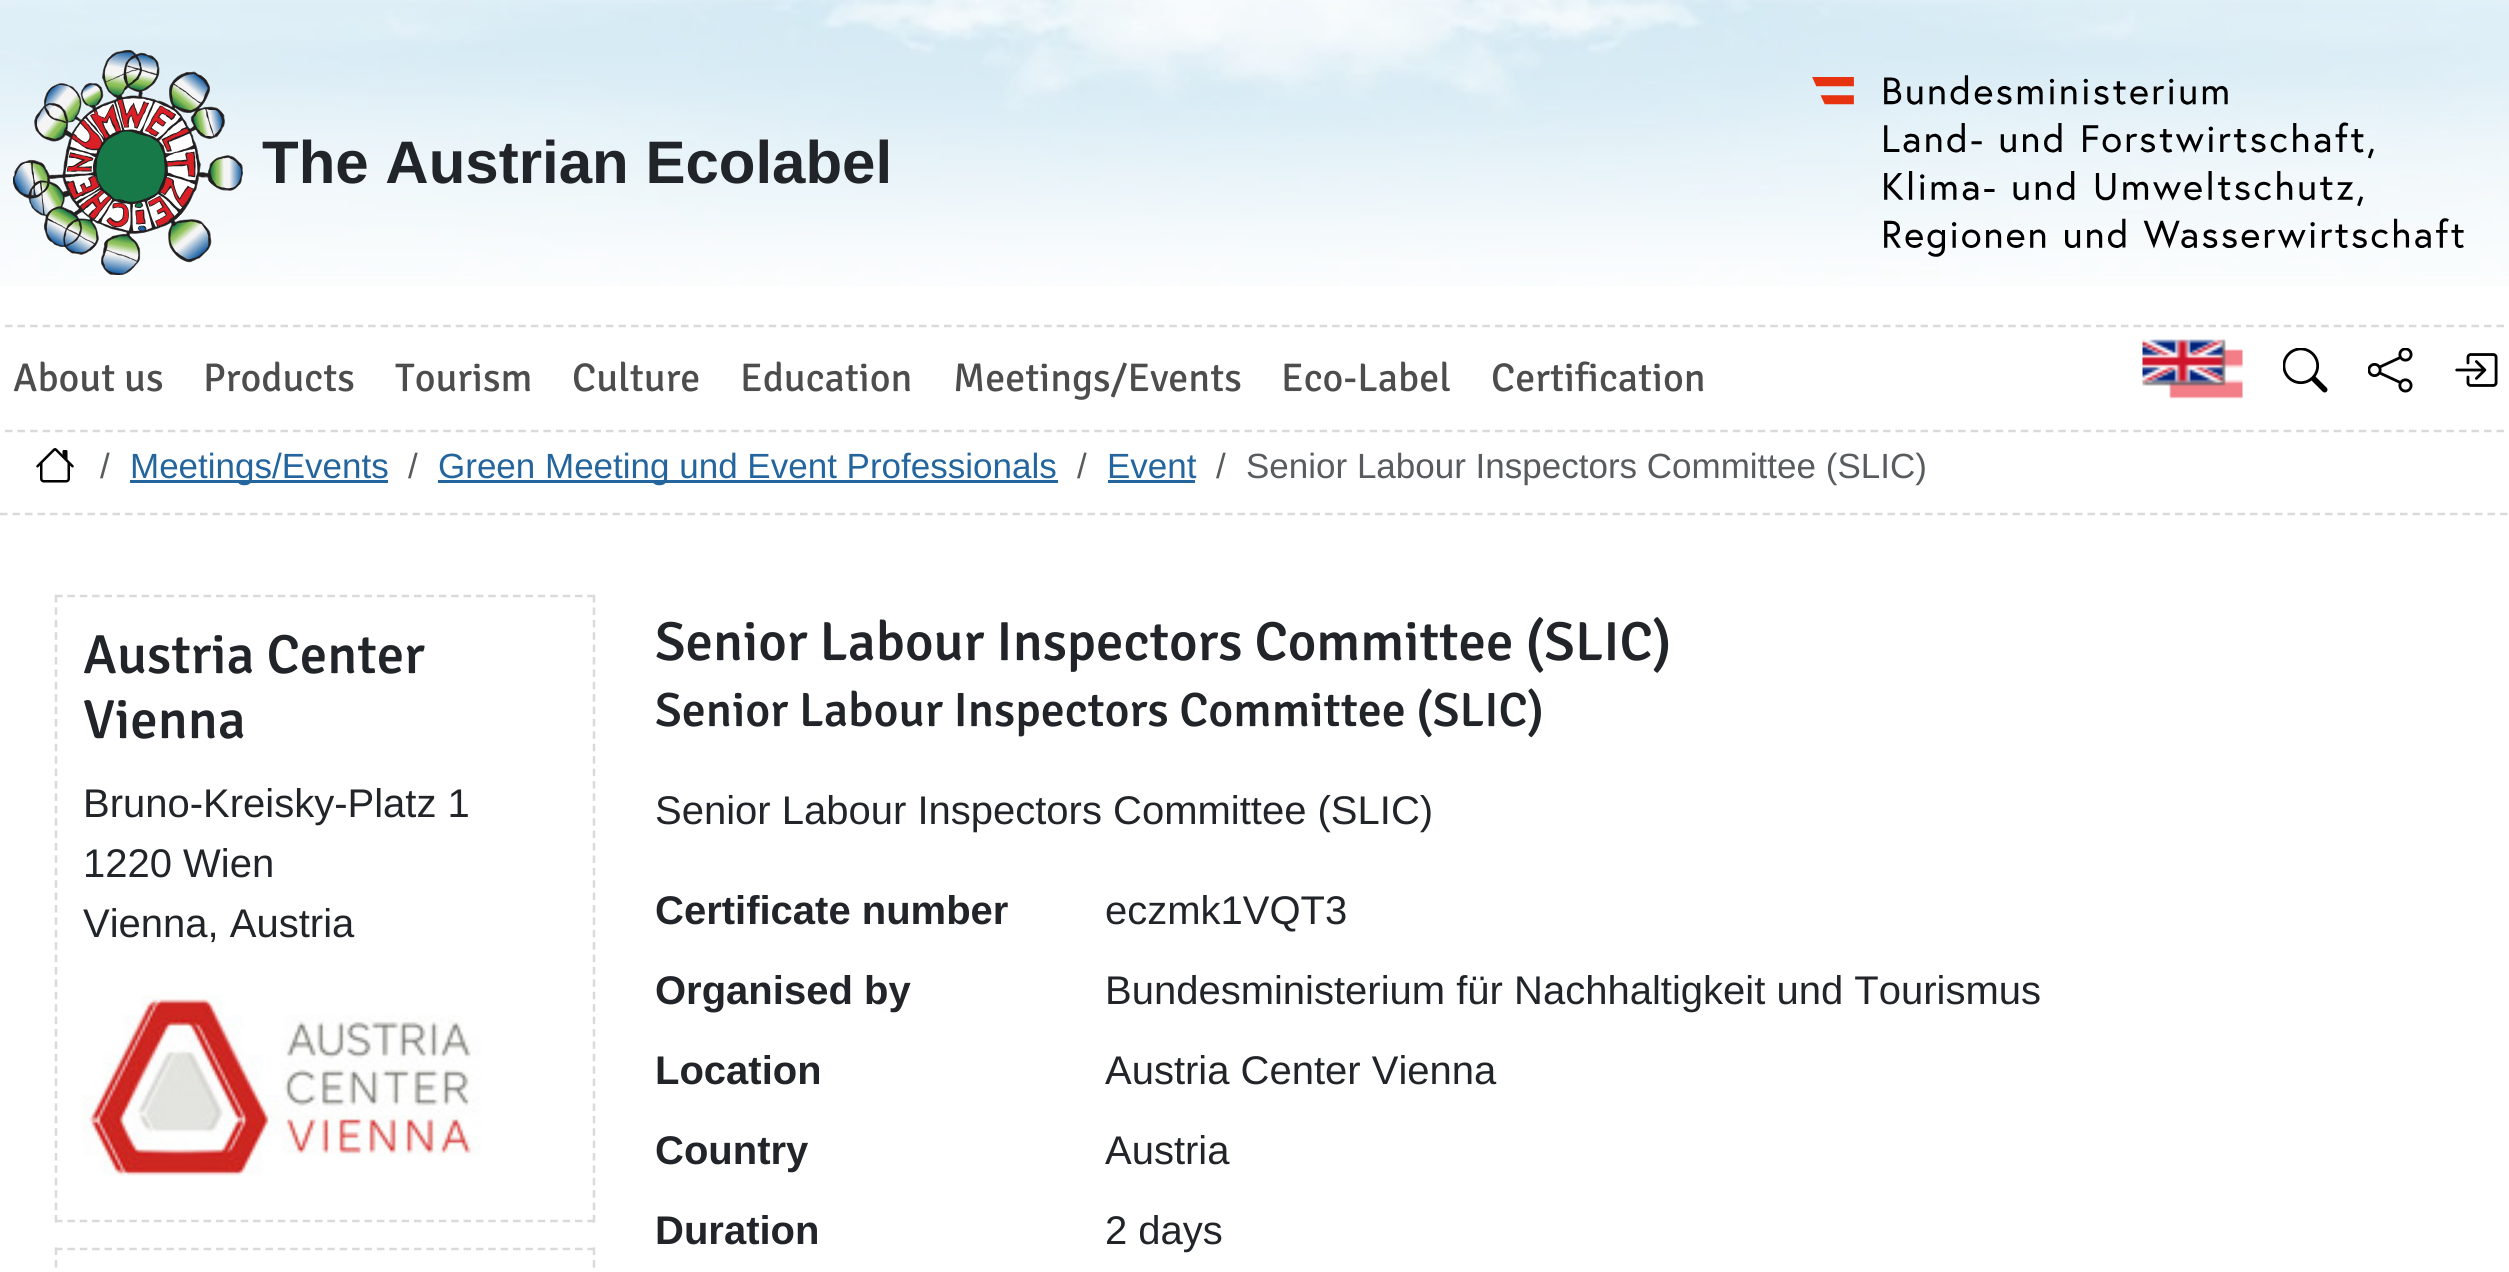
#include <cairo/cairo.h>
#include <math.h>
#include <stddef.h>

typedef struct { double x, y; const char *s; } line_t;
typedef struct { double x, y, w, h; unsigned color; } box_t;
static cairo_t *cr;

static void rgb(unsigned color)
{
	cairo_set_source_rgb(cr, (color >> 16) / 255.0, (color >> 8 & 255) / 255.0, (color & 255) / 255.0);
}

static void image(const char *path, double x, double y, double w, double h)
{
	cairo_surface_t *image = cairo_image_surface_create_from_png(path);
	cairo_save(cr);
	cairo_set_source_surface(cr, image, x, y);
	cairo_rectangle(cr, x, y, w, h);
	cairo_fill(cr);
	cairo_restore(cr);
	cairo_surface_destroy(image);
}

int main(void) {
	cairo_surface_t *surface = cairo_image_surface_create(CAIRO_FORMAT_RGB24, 2509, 1272);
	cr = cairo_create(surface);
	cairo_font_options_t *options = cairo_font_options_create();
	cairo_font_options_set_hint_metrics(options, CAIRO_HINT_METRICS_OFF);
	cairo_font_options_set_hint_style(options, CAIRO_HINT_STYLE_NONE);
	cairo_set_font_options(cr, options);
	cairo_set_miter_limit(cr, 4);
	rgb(0xffffff);
	cairo_paint(cr);
	image("img/1.png", 0, 0, 2509, 286);
	image("img/2.png", 13, 50, 230, 225);
	image("img/3.png", 1812, 75, 652, 182);
	cairo_new_path(cr);
	cairo_move_to(cr, -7.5, 326);
	cairo_line_to(cr, 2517.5, 326);
	rgb(0xdadada);
	cairo_set_line_width(cr, 2.5);
	cairo_set_dash(cr, (double[]){7.5, 5.02}, 2, 0);
	cairo_stroke(cr);
	cairo_new_path(cr);
	cairo_move_to(cr, -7.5, 431);
	cairo_line_to(cr, 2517.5, 431);
	cairo_stroke(cr);
	image("img/4.png", 2142, 339, 101, 60);
	image("img/5.png", 2283, 348, 45, 45);
	image("img/6.png", 2368, 348, 45, 45);
	image("img/7.png", 2455, 353, 43, 34);
	cairo_new_path(cr);
	cairo_move_to(cr, 0, 514);
	cairo_line_to(cr, 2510, 514);
	cairo_set_dash(cr, (double[]){7.5, 5}, 2, 0);
	cairo_stroke(cr);
	image("img/8.png", 36, 448, 38, 35);
	{
		static const box_t items[] = {
			{130, 480, 258, 3, 0x24659d},
			{438, 480, 620, 3, 0x24659d},
			{1108, 480, 87, 3, 0x24659d},
		};
		for (size_t i = 0; i < sizeof items / sizeof *items; i++) {
			rgb(items[i].color);
			cairo_rectangle(cr, items[i].x, items[i].y, items[i].w, items[i].h);
			cairo_fill(cr);
		}
	}
	cairo_new_path(cr);
	cairo_move_to(cr, 55, 596);
	cairo_line_to(cr, 595, 596);
	rgb(0xdadada);
	cairo_set_dash(cr, (double[]){7.5, 4.88}, 2, 0);
	cairo_stroke(cr);
	cairo_new_path(cr);
	cairo_move_to(cr, 594, 595);
	cairo_line_to(cr, 594, 1222.5);
	cairo_set_dash(cr, (double[]){7.5, 4.9}, 2, 0);
	cairo_stroke(cr);
	cairo_new_path(cr);
	cairo_move_to(cr, 55, 1221);
	cairo_line_to(cr, 595, 1221);
	cairo_set_dash(cr, (double[]){7.5, 4.88}, 2, 0);
	cairo_stroke(cr);
	cairo_new_path(cr);
	cairo_move_to(cr, 56, 595);
	cairo_line_to(cr, 56, 1222.5);
	cairo_set_dash(cr, (double[]){7.5, 4.9}, 2, 0);
	cairo_stroke(cr);
	image("img/9.png", 82, 995, 400, 181);
	cairo_new_path(cr);
	cairo_move_to(cr, 55, 1249);
	cairo_line_to(cr, 595, 1249);
	cairo_set_dash(cr, (double[]){7.5, 4.88}, 2, 0);
	cairo_stroke(cr);
	cairo_new_path(cr);
	cairo_move_to(cr, 594, 1247.5);
	cairo_line_to(cr, 594, 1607.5);
	cairo_set_dash(cr, (double[]){7.5, 5.1}, 2, 0);
	cairo_stroke(cr);
	cairo_new_path(cr);
	cairo_move_to(cr, 56, 1247.5);
	cairo_line_to(cr, 56, 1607.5);
	cairo_stroke(cr);
	cairo_select_font_face(cr, "Liberation Sans", CAIRO_FONT_SLANT_NORMAL, CAIRO_FONT_WEIGHT_BOLD);
	cairo_set_font_size(cr, 60);
	rgb(0x212529);
	cairo_move_to(cr, 262, 183);
	cairo_show_text(cr, "The Austrian Ecolabel");
	cairo_select_font_face(cr, "Signika", CAIRO_FONT_SLANT_NORMAL, CAIRO_FONT_WEIGHT_NORMAL);
	cairo_set_font_size(cr, 40);
	rgb(0x4d4d4d);
	{
		static const line_t items[] = {
			{13, 391, "About us"},
			{203, 391, "Products"},
			{395, 391, "Tourism"},
			{572, 391, "Culture"},
			{740, 391, "Education"},
			{953, 391, "Meetings/Events"},
			{1281, 391, "Eco-Label"},
			{1491, 391, "Certification"},
		};
		for (size_t i = 0; i < sizeof items / sizeof *items; i++) {
			cairo_move_to(cr, items[i].x, items[i].y);
			cairo_show_text(cr, items[i].s);
		}
	}
	cairo_select_font_face(cr, "Liberation Sans", CAIRO_FONT_SLANT_NORMAL, CAIRO_FONT_WEIGHT_NORMAL);
	cairo_set_font_size(cr, 35);
	rgb(0x595c5f);
	cairo_move_to(cr, 100, 478);
	cairo_show_text(cr, "/");
	rgb(0x24659d);
	cairo_move_to(cr, 130, 478);
	cairo_show_text(cr, "Meetings/Events");
	rgb(0x595c5f);
	cairo_move_to(cr, 408, 478);
	cairo_show_text(cr, "/");
	rgb(0x24659d);
	cairo_move_to(cr, 438, 478);
	cairo_show_text(cr, "Green Meeting und Event Professionals");
	rgb(0x595c5f);
	cairo_move_to(cr, 1077, 478);
	cairo_show_text(cr, "/");
	rgb(0x24659d);
	cairo_move_to(cr, 1107, 478);
	cairo_show_text(cr, "Event");
	rgb(0x595c5f);
	cairo_move_to(cr, 1216, 478);
	cairo_show_text(cr, "/");
	cairo_move_to(cr, 1246, 478);
	cairo_show_text(cr, "Senior Labour Inspectors Committee (SLIC)");
	cairo_select_font_face(cr, "Signika Medium", CAIRO_FONT_SLANT_NORMAL, CAIRO_FONT_WEIGHT_NORMAL);
	cairo_set_font_size(cr, 55);
	rgb(0x212529);
	cairo_move_to(cr, 83, 673);
	cairo_show_text(cr, "Austria Center");
	cairo_move_to(cr, 83, 738);
	cairo_show_text(cr, "Vienna");
	cairo_select_font_face(cr, "Liberation Sans", CAIRO_FONT_SLANT_NORMAL, CAIRO_FONT_WEIGHT_NORMAL);
	cairo_set_font_size(cr, 40);
	{
		static const line_t items[] = {
			{83, 817, "Bruno-Kreisky-Platz 1"},
			{83, 877, "1220 Wien"},
			{83, 937, "Vienna, Austria"},
		};
		for (size_t i = 0; i < sizeof items / sizeof *items; i++) {
			cairo_move_to(cr, items[i].x, items[i].y);
			cairo_show_text(cr, items[i].s);
		}
	}
	cairo_select_font_face(cr, "Signika Medium", CAIRO_FONT_SLANT_NORMAL, CAIRO_FONT_WEIGHT_NORMAL);
	cairo_set_font_size(cr, 55);
	cairo_move_to(cr, 655, 660);
	cairo_show_text(cr, "Senior Labour Inspectors Committee (SLIC)");
	cairo_set_font_size(cr, 48.1);
	cairo_move_to(cr, 655, 726);
	cairo_show_text(cr, "Senior Labour Inspectors Committee (SLIC)");
	cairo_select_font_face(cr, "Liberation Sans", CAIRO_FONT_SLANT_NORMAL, CAIRO_FONT_WEIGHT_NORMAL);
	cairo_set_font_size(cr, 40);
	cairo_move_to(cr, 655, 824);
	cairo_show_text(cr, "Senior Labour Inspectors Committee (SLIC)");
	cairo_select_font_face(cr, "Liberation Sans", CAIRO_FONT_SLANT_NORMAL, CAIRO_FONT_WEIGHT_BOLD);
	cairo_move_to(cr, 655, 924);
	cairo_show_text(cr, "Certificate number");
	cairo_select_font_face(cr, "Liberation Sans", CAIRO_FONT_SLANT_NORMAL, CAIRO_FONT_WEIGHT_NORMAL);
	cairo_move_to(cr, 1105, 924);
	cairo_show_text(cr, "eczmk1VQT3");
	cairo_select_font_face(cr, "Liberation Sans", CAIRO_FONT_SLANT_NORMAL, CAIRO_FONT_WEIGHT_BOLD);
	cairo_move_to(cr, 655, 1004);
	cairo_show_text(cr, "Organised by");
	cairo_select_font_face(cr, "Liberation Sans", CAIRO_FONT_SLANT_NORMAL, CAIRO_FONT_WEIGHT_NORMAL);
	cairo_move_to(cr, 1105, 1004);
	cairo_show_text(cr, "Bundesministerium für Nachhaltigkeit und Tourismus");
	cairo_select_font_face(cr, "Liberation Sans", CAIRO_FONT_SLANT_NORMAL, CAIRO_FONT_WEIGHT_BOLD);
	cairo_move_to(cr, 655, 1084);
	cairo_show_text(cr, "Location");
	cairo_select_font_face(cr, "Liberation Sans", CAIRO_FONT_SLANT_NORMAL, CAIRO_FONT_WEIGHT_NORMAL);
	cairo_move_to(cr, 1105, 1084);
	cairo_show_text(cr, "Austria Center Vienna");
	cairo_select_font_face(cr, "Liberation Sans", CAIRO_FONT_SLANT_NORMAL, CAIRO_FONT_WEIGHT_BOLD);
	cairo_move_to(cr, 655, 1164);
	cairo_show_text(cr, "Country");
	cairo_select_font_face(cr, "Liberation Sans", CAIRO_FONT_SLANT_NORMAL, CAIRO_FONT_WEIGHT_NORMAL);
	cairo_move_to(cr, 1105, 1164);
	cairo_show_text(cr, "Austria");
	cairo_select_font_face(cr, "Liberation Sans", CAIRO_FONT_SLANT_NORMAL, CAIRO_FONT_WEIGHT_BOLD);
	cairo_move_to(cr, 655, 1244);
	cairo_show_text(cr, "Duration");
	cairo_select_font_face(cr, "Liberation Sans", CAIRO_FONT_SLANT_NORMAL, CAIRO_FONT_WEIGHT_NORMAL);
	cairo_move_to(cr, 1105, 1244);
	cairo_show_text(cr, "2 days");
	cairo_surface_write_to_png(surface, "page.png");
	cairo_font_options_destroy(options);
	cairo_destroy(cr);
	cairo_surface_destroy(surface);
	return 0;
}
